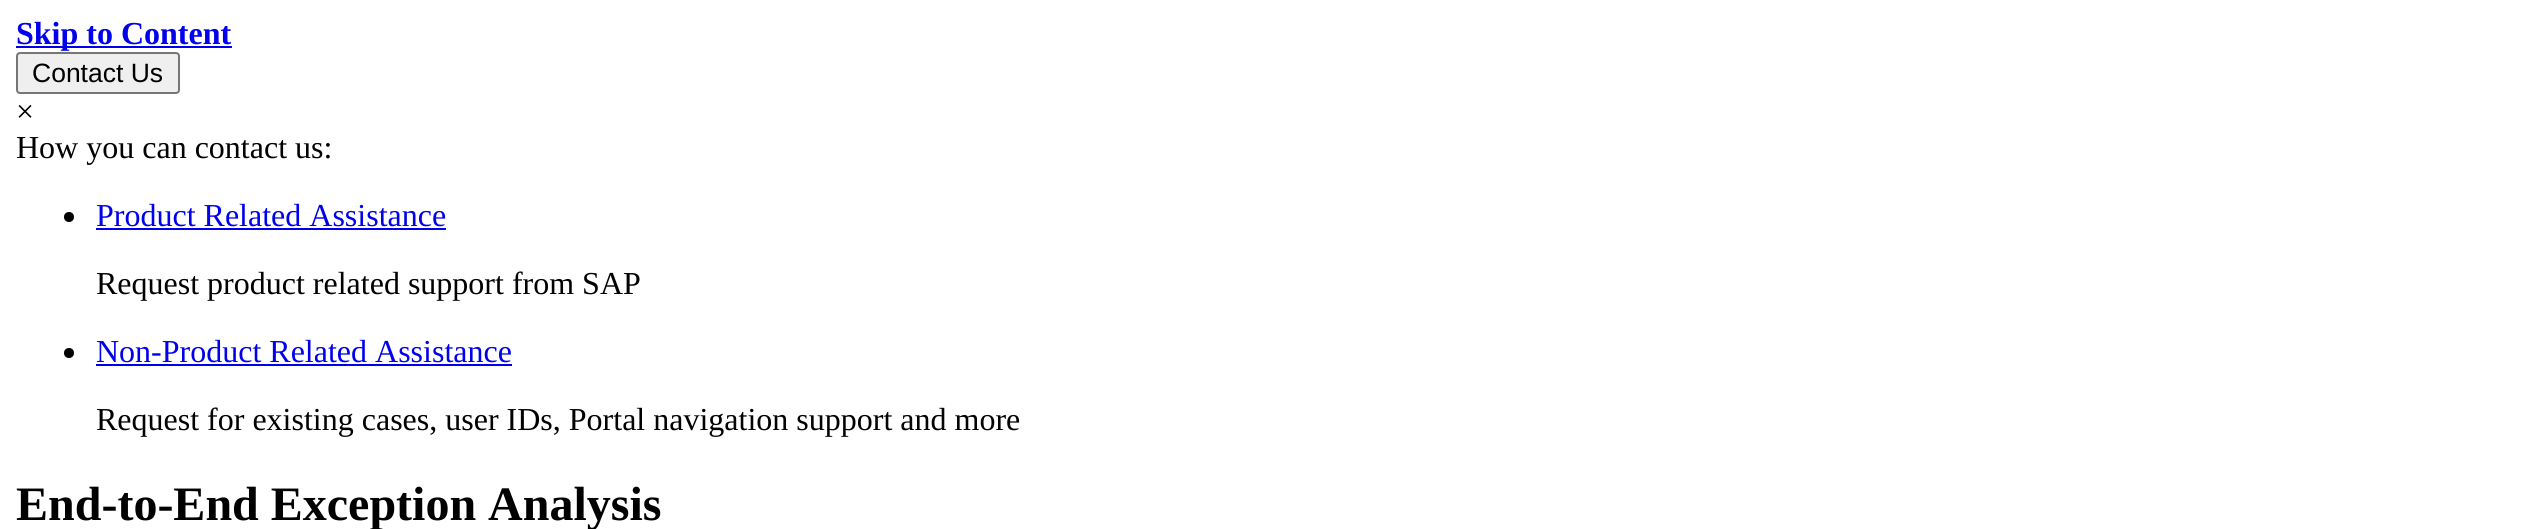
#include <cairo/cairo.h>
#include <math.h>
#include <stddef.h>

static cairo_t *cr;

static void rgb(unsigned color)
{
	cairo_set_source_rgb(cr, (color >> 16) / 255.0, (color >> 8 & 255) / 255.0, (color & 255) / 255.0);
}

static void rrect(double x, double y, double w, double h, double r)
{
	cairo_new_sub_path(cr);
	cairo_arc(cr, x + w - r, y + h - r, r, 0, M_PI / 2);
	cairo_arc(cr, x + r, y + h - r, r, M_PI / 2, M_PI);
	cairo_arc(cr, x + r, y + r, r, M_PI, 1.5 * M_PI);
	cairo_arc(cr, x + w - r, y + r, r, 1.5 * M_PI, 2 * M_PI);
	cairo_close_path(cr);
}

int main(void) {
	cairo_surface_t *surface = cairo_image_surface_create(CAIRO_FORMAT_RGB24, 2546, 529);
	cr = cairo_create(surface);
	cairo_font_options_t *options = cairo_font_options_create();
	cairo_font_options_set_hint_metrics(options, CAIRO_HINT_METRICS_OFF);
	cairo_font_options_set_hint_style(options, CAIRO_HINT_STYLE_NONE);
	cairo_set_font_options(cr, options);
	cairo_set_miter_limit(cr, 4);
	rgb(0xffffff);
	cairo_paint(cr);
	rgb(0x0000ee);
	cairo_rectangle(cr, 16, 46, 216, 2);
	cairo_fill(cr);
	rgb(0xefefef);
	rrect(17, 53, 162, 40, 3);
	cairo_fill_preserve(cr);
	rgb(0x767676);
	cairo_stroke(cr);
	rgb(0x000000);
	cairo_arc(cr, 69, 217, 5, 0, 2 * M_PI);
	cairo_fill(cr);
	rgb(0x0000ee);
	cairo_rectangle(cr, 96, 228, 350, 2);
	cairo_fill(cr);
	rgb(0x000000);
	cairo_arc(cr, 69, 353, 5, 0, 2 * M_PI);
	cairo_fill(cr);
	rgb(0x0000ee);
	cairo_rectangle(cr, 96, 364, 416, 2);
	cairo_fill(cr);
	cairo_select_font_face(cr, "Liberation Serif", CAIRO_FONT_SLANT_NORMAL, CAIRO_FONT_WEIGHT_BOLD);
	cairo_set_font_size(cr, 32);
	cairo_move_to(cr, 16, 44);
	cairo_show_text(cr, "Skip to Content");
	cairo_select_font_face(cr, "Liberation Sans", CAIRO_FONT_SLANT_NORMAL, CAIRO_FONT_WEIGHT_NORMAL);
	cairo_set_font_size(cr, 26.5);
	rgb(0x000000);
	cairo_move_to(cr, 32, 82);
	cairo_show_text(cr, "Contact Us");
	cairo_select_font_face(cr, "Liberation Serif", CAIRO_FONT_SLANT_NORMAL, CAIRO_FONT_WEIGHT_NORMAL);
	cairo_set_font_size(cr, 32);
	cairo_move_to(cr, 16, 122);
	cairo_show_text(cr, "×");
	cairo_move_to(cr, 16, 158);
	cairo_show_text(cr, "How you can contact us:");
	rgb(0x0000ee);
	cairo_move_to(cr, 96, 226);
	cairo_show_text(cr, "Product Related Assistance");
	rgb(0x000000);
	cairo_move_to(cr, 96, 294);
	cairo_show_text(cr, "Request product related support from SAP");
	rgb(0x0000ee);
	cairo_move_to(cr, 96, 362);
	cairo_show_text(cr, "Non-Product Related Assistance");
	rgb(0x000000);
	cairo_move_to(cr, 96, 430);
	cairo_show_text(cr, "Request for existing cases, user IDs, Portal navigation support and more");
	cairo_select_font_face(cr, "Liberation Serif", CAIRO_FONT_SLANT_NORMAL, CAIRO_FONT_WEIGHT_BOLD);
	cairo_set_font_size(cr, 48);
	cairo_move_to(cr, 16, 520);
	cairo_show_text(cr, "End-to-End Exception Analysis");
	cairo_surface_write_to_png(surface, "page.png");
	cairo_font_options_destroy(options);
	cairo_destroy(cr);
	cairo_surface_destroy(surface);
	return 0;
}
